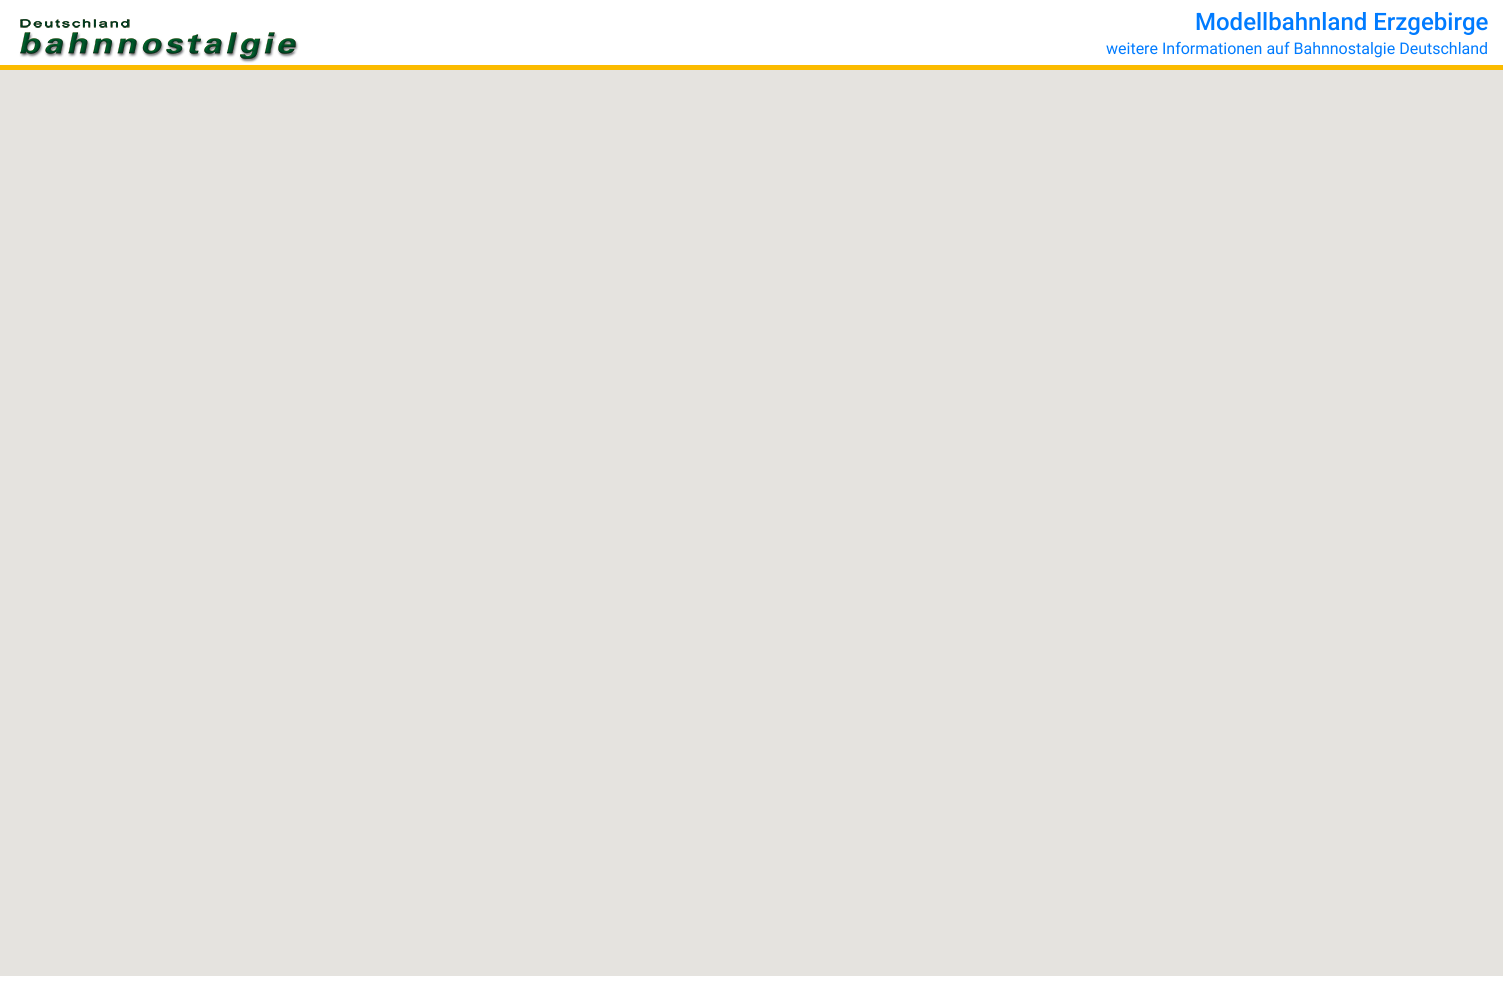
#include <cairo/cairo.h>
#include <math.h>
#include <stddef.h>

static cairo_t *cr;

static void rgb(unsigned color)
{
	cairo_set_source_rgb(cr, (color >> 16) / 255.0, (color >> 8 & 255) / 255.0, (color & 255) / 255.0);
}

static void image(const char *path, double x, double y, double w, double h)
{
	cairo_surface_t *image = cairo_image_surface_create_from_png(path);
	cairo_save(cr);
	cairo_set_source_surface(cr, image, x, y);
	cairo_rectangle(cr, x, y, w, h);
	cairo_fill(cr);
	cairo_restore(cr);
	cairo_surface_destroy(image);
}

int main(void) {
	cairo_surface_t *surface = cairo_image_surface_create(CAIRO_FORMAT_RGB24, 1503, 981);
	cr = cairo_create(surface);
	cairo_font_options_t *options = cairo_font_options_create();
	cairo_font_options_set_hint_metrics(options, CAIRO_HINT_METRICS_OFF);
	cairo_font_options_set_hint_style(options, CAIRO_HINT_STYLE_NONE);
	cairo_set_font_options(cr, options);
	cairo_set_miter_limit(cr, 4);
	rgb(0xffffff);
	cairo_paint(cr);
	rgb(0xfbbb00);
	cairo_rectangle(cr, 0, 65, 1503, 5);
	cairo_fill(cr);
	image("img/1.png", 19, 19, 280, 44);
	rgb(0xe5e3df);
	cairo_rectangle(cr, 0, 70, 1503, 906);
	cairo_fill(cr);
	cairo_select_font_face(cr, "Roboto Medium", CAIRO_FONT_SLANT_NORMAL, CAIRO_FONT_WEIGHT_NORMAL);
	cairo_set_font_size(cr, 24);
	rgb(0x007bff);
	cairo_move_to(cr, 1195, 30);
	cairo_show_text(cr, "Modellbahnland Erzgebirge");
	cairo_select_font_face(cr, "Roboto", CAIRO_FONT_SLANT_NORMAL, CAIRO_FONT_WEIGHT_NORMAL);
	cairo_set_font_size(cr, 16);
	cairo_move_to(cr, 1106, 54);
	cairo_show_text(cr, "weitere Informationen auf Bahnnostalgie Deutschland");
	cairo_surface_write_to_png(surface, "page.png");
	cairo_font_options_destroy(options);
	cairo_destroy(cr);
	cairo_surface_destroy(surface);
	return 0;
}
